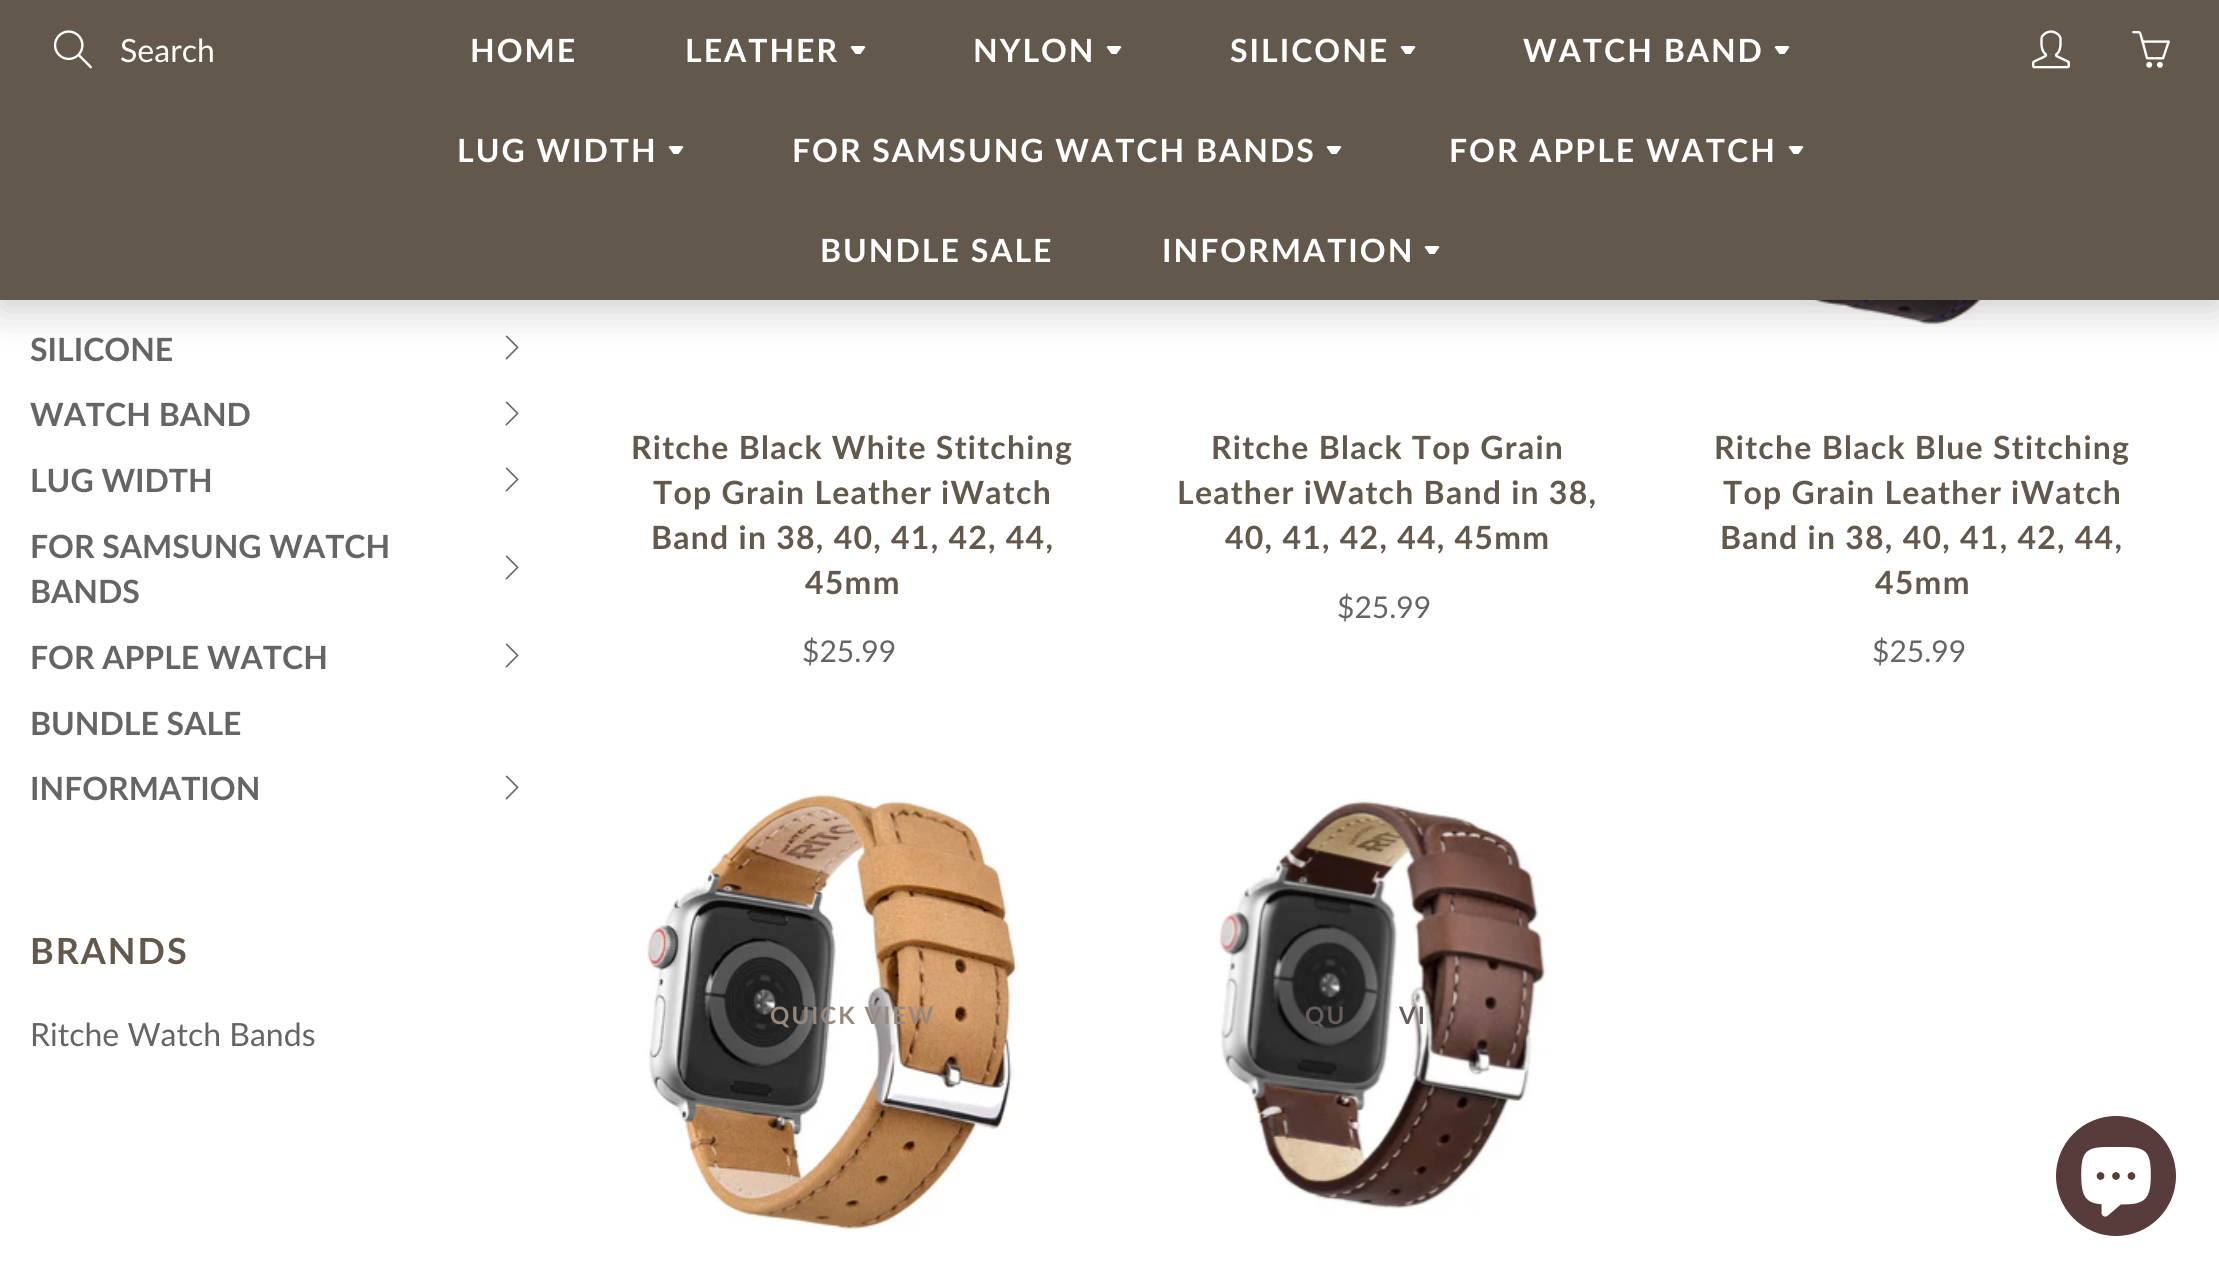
#include <cairo/cairo.h>
#include <math.h>
#include <stddef.h>

typedef struct { double x, y; const char *s; } line_t;
static cairo_t *cr;

static void rgb(unsigned color)
{
	cairo_set_source_rgb(cr, (color >> 16) / 255.0, (color >> 8 & 255) / 255.0, (color & 255) / 255.0);
}

static void tracked(double x, double y, const char *s, double letter, double word)
{
	cairo_move_to(cr, x, y);
	while (*s) {
		char ch[5] = {0};
		int n = 0;
		do ch[n++] = *s++; while ((*s & 0xC0) == 0x80);
		cairo_show_text(cr, ch);
		cairo_rel_move_to(cr, letter + word * (*ch == ' '), 0);
	}
}

static void rrect(double x, double y, double w, double h, double r)
{
	cairo_new_sub_path(cr);
	cairo_arc(cr, x + w - r, y + h - r, r, 0, M_PI / 2);
	cairo_arc(cr, x + r, y + h - r, r, M_PI / 2, M_PI);
	cairo_arc(cr, x + r, y + r, r, M_PI, 1.5 * M_PI);
	cairo_arc(cr, x + w - r, y + r, r, 1.5 * M_PI, 2 * M_PI);
	cairo_close_path(cr);
}

static void soft_shadow(double x, double y, double w, double h, double r, double blur, double alpha)
{
	cairo_push_group_with_content(cr, CAIRO_CONTENT_ALPHA);
	cairo_set_operator(cr, CAIRO_OPERATOR_SOURCE);
	for (int i = 15; i >= -15 && fmin(w, h) + blur * i / 3 > 0; i -= 2) {
		double e = blur * i / 6;
		cairo_set_source_rgba(cr, 0, 0, 0, alpha * erfc((i - 1) / 8.5) / 2);
		rrect(x - e, y - e, w + 2 * e, h + 2 * e, fmax(0, fmin(r + e + blur * .6, fmin(w, h) / 2 + e)));
		cairo_fill(cr);
	}
	cairo_pattern_t *soft = cairo_pop_group(cr);
	cairo_mask(cr, soft);
	cairo_pattern_destroy(soft);
}

static void image(const char *path, double x, double y, double w, double h)
{
	cairo_surface_t *image = cairo_image_surface_create_from_png(path);
	cairo_save(cr);
	cairo_set_source_surface(cr, image, x, y);
	cairo_rectangle(cr, x, y, w, h);
	cairo_fill(cr);
	cairo_restore(cr);
	cairo_surface_destroy(image);
}

int main(void) {
	cairo_surface_t *surface = cairo_image_surface_create(CAIRO_FORMAT_RGB24, 2219, 1278);
	cr = cairo_create(surface);
	cairo_font_options_t *options = cairo_font_options_create();
	cairo_font_options_set_hint_metrics(options, CAIRO_HINT_METRICS_OFF);
	cairo_font_options_set_hint_style(options, CAIRO_HINT_STYLE_NONE);
	cairo_set_font_options(cr, options);
	cairo_set_miter_limit(cr, 4);
	rgb(0xffffff);
	cairo_paint(cr);
	image("img/4.png", 505, 335, 14, 25);
	image("img/5.png", 1743, 300, 345, 27);
	rgb(0x000000);
	soft_shadow(0, 10, 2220, 300, 0, 20, 0.2);
	rgb(0x63584c);
	cairo_rectangle(cr, 0, 0, 2219, 300);
	cairo_fill(cr);
	image("img/1.png", 53, 30, 39, 39);
	rgb(0xffffff);
	cairo_new_path(cr);
	cairo_move_to(cr, 852, 46);
	cairo_line_to(cr, 850.5, 47);
	cairo_line_to(cr, 855.5, 54);
	cairo_line_to(cr, 860.5, 54);
	cairo_line_to(cr, 865.5, 47);
	cairo_line_to(cr, 864, 46);
	cairo_close_path(cr);
	cairo_fill(cr);
	cairo_new_path(cr);
	cairo_move_to(cr, 1108, 46);
	cairo_line_to(cr, 1106.5, 47);
	cairo_line_to(cr, 1111.5, 54);
	cairo_line_to(cr, 1116.5, 54);
	cairo_line_to(cr, 1121.5, 47);
	cairo_line_to(cr, 1120, 46);
	cairo_close_path(cr);
	cairo_fill(cr);
	cairo_new_path(cr);
	cairo_move_to(cr, 1402, 46);
	cairo_line_to(cr, 1400.5, 47);
	cairo_line_to(cr, 1405.5, 54);
	cairo_line_to(cr, 1410.5, 54);
	cairo_line_to(cr, 1415.5, 47);
	cairo_line_to(cr, 1414, 46);
	cairo_close_path(cr);
	cairo_fill(cr);
	cairo_new_path(cr);
	cairo_move_to(cr, 1776, 46);
	cairo_line_to(cr, 1774.5, 47);
	cairo_line_to(cr, 1779.5, 54);
	cairo_line_to(cr, 1784.5, 54);
	cairo_line_to(cr, 1789.5, 47);
	cairo_line_to(cr, 1788, 46);
	cairo_close_path(cr);
	cairo_fill(cr);
	cairo_new_path(cr);
	cairo_move_to(cr, 670, 146);
	cairo_line_to(cr, 668.5, 147);
	cairo_line_to(cr, 673.5, 154);
	cairo_line_to(cr, 678.5, 154);
	cairo_line_to(cr, 683.5, 147);
	cairo_line_to(cr, 682, 146);
	cairo_close_path(cr);
	cairo_fill(cr);
	cairo_new_path(cr);
	cairo_move_to(cr, 1328, 146);
	cairo_line_to(cr, 1326.5, 147);
	cairo_line_to(cr, 1331.5, 154);
	cairo_line_to(cr, 1336.5, 154);
	cairo_line_to(cr, 1341.5, 147);
	cairo_line_to(cr, 1340, 146);
	cairo_close_path(cr);
	cairo_fill(cr);
	cairo_new_path(cr);
	cairo_move_to(cr, 1790, 146);
	cairo_line_to(cr, 1788.5, 147);
	cairo_line_to(cr, 1793.5, 154);
	cairo_line_to(cr, 1798.5, 154);
	cairo_line_to(cr, 1803.5, 147);
	cairo_line_to(cr, 1802, 146);
	cairo_close_path(cr);
	cairo_fill(cr);
	cairo_new_path(cr);
	cairo_move_to(cr, 1426, 246);
	cairo_line_to(cr, 1424.5, 247);
	cairo_line_to(cr, 1429.5, 254);
	cairo_line_to(cr, 1434.5, 254);
	cairo_line_to(cr, 1439.5, 247);
	cairo_line_to(cr, 1438, 246);
	cairo_close_path(cr);
	cairo_fill(cr);
	image("img/2.png", 2032, 30, 38, 39);
	image("img/3.png", 2132, 31, 38, 37);
	image("img/4.png", 505, 401, 14, 25);
	image("img/4.png", 505, 467, 14, 25);
	image("img/4.png", 505, 555, 14, 25);
	image("img/4.png", 505, 643, 14, 25);
	image("img/4.png", 505, 775, 14, 25);
	image("img/6.png", 645, 791, 376, 440);
	image("img/7.png", 1219, 799, 327, 411);
	rgb(0x583b3b);
	cairo_arc(cr, 2116, 1176, 60, 0, 2 * M_PI);
	cairo_fill(cr);
	image("img/8.png", 2081, 1147, 70, 70);
	cairo_select_font_face(cr, "Lato", CAIRO_FONT_SLANT_NORMAL, CAIRO_FONT_WEIGHT_NORMAL);
	cairo_set_font_size(cr, 32);
	rgb(0xffffff);
	cairo_move_to(cr, 120, 62);
	cairo_show_text(cr, "Search");
	cairo_select_font_face(cr, "Lato", CAIRO_FONT_SLANT_NORMAL, CAIRO_FONT_WEIGHT_BOLD);
	{
		static const line_t items[] = {
			{470, 62, "HOME"},
			{685, 62, "LEATHER"},
			{973, 62, "NYLON"},
			{1230, 62, "SILICONE"},
			{1523, 62, "WATCH BAND"},
			{457, 162, "LUG WIDTH"},
			{792, 162, "FOR SAMSUNG WATCH BANDS"},
			{1449, 162, "FOR APPLE WATCH"},
			{820, 262, "BUNDLE SALE"},
			{1162, 262, "INFORMATION"},
		};
		for (size_t i = 0; i < sizeof items / sizeof *items; i++) {
			tracked(items[i].x, items[i].y, items[i].s, 2, 0);
		}
	}
	rgb(0x666565);
	{
		static const line_t items[] = {
			{30, 361, "SILICONE"},
			{30, 426, "WATCH BAND"},
			{30, 492, "LUG WIDTH"},
			{30, 558, "FOR SAMSUNG WATCH"},
			{30, 603, "BANDS"},
			{30, 669, "FOR APPLE WATCH"},
			{30, 735, "BUNDLE SALE"},
			{30, 800, "INFORMATION"},
		};
		for (size_t i = 0; i < sizeof items / sizeof *items; i++) {
			cairo_move_to(cr, items[i].x, items[i].y);
			cairo_show_text(cr, items[i].s);
		}
	}
	cairo_set_font_size(cr, 36);
	rgb(0x63584c);
	tracked(30, 964, "BRANDS", 2, 0);
	cairo_select_font_face(cr, "Lato", CAIRO_FONT_SLANT_NORMAL, CAIRO_FONT_WEIGHT_NORMAL);
	cairo_set_font_size(cr, 32);
	rgb(0x666565);
	cairo_move_to(cr, 30, 1046);
	cairo_show_text(cr, "Ritche Watch Bands");
	cairo_select_font_face(cr, "Lato", CAIRO_FONT_SLANT_NORMAL, CAIRO_FONT_WEIGHT_BOLD);
	rgb(0x63584c);
	{
		static const line_t items[] = {
			{631, 459, "Ritche Black White Stitching"},
			{653, 504, "Top Grain Leather iWatch"},
			{651, 549, "Band in 38, 40, 41, 42, 44,"},
			{805, 594, "45mm"},
		};
		for (size_t i = 0; i < sizeof items / sizeof *items; i++) {
			tracked(items[i].x, items[i].y, items[i].s, 1.25, 0);
		}
	}
	cairo_select_font_face(cr, "Lato", CAIRO_FONT_SLANT_NORMAL, CAIRO_FONT_WEIGHT_NORMAL);
	cairo_set_font_size(cr, 30);
	rgb(0x666565);
	cairo_move_to(cr, 802, 662);
	cairo_show_text(cr, "$25.99");
	cairo_select_font_face(cr, "Lato", CAIRO_FONT_SLANT_NORMAL, CAIRO_FONT_WEIGHT_BOLD);
	cairo_set_font_size(cr, 32);
	rgb(0x63584c);
	{
		static const line_t items[] = {
			{1211, 459, "Ritche Black Top Grain"},
			{1177, 504, "Leather iWatch Band in 38,"},
			{1225, 549, "40, 41, 42, 44, 45mm"},
		};
		for (size_t i = 0; i < sizeof items / sizeof *items; i++) {
			tracked(items[i].x, items[i].y, items[i].s, 1.25, 0);
		}
	}
	cairo_select_font_face(cr, "Lato", CAIRO_FONT_SLANT_NORMAL, CAIRO_FONT_WEIGHT_NORMAL);
	cairo_set_font_size(cr, 30);
	rgb(0x666565);
	cairo_move_to(cr, 1337, 618);
	cairo_show_text(cr, "$25.99");
	cairo_select_font_face(cr, "Lato", CAIRO_FONT_SLANT_NORMAL, CAIRO_FONT_WEIGHT_BOLD);
	cairo_set_font_size(cr, 32);
	rgb(0x63584c);
	{
		static const line_t items[] = {
			{1714, 459, "Ritche Black Blue Stitching"},
			{1723, 504, "Top Grain Leather iWatch"},
			{1720, 549, "Band in 38, 40, 41, 42, 44,"},
			{1875, 594, "45mm"},
		};
		for (size_t i = 0; i < sizeof items / sizeof *items; i++) {
			tracked(items[i].x, items[i].y, items[i].s, 1.25, 0);
		}
	}
	cairo_select_font_face(cr, "Lato", CAIRO_FONT_SLANT_NORMAL, CAIRO_FONT_WEIGHT_NORMAL);
	cairo_set_font_size(cr, 30);
	rgb(0x666565);
	cairo_move_to(cr, 1872, 662);
	cairo_show_text(cr, "$25.99");
	cairo_select_font_face(cr, "Lato", CAIRO_FONT_SLANT_NORMAL, CAIRO_FONT_WEIGHT_BOLD);
	cairo_set_font_size(cr, 24);
	rgb(0x96887d);
	tracked(770, 1024, "QUICK VIEW", 2, 0);
	rgb(0x655e5d);
	tracked(1305, 1024, "QU", 2, 0);
	tracked(1399, 1024, "VI", 2, 0);
	cairo_surface_write_to_png(surface, "page.png");
	cairo_font_options_destroy(options);
	cairo_destroy(cr);
	cairo_surface_destroy(surface);
	return 0;
}
